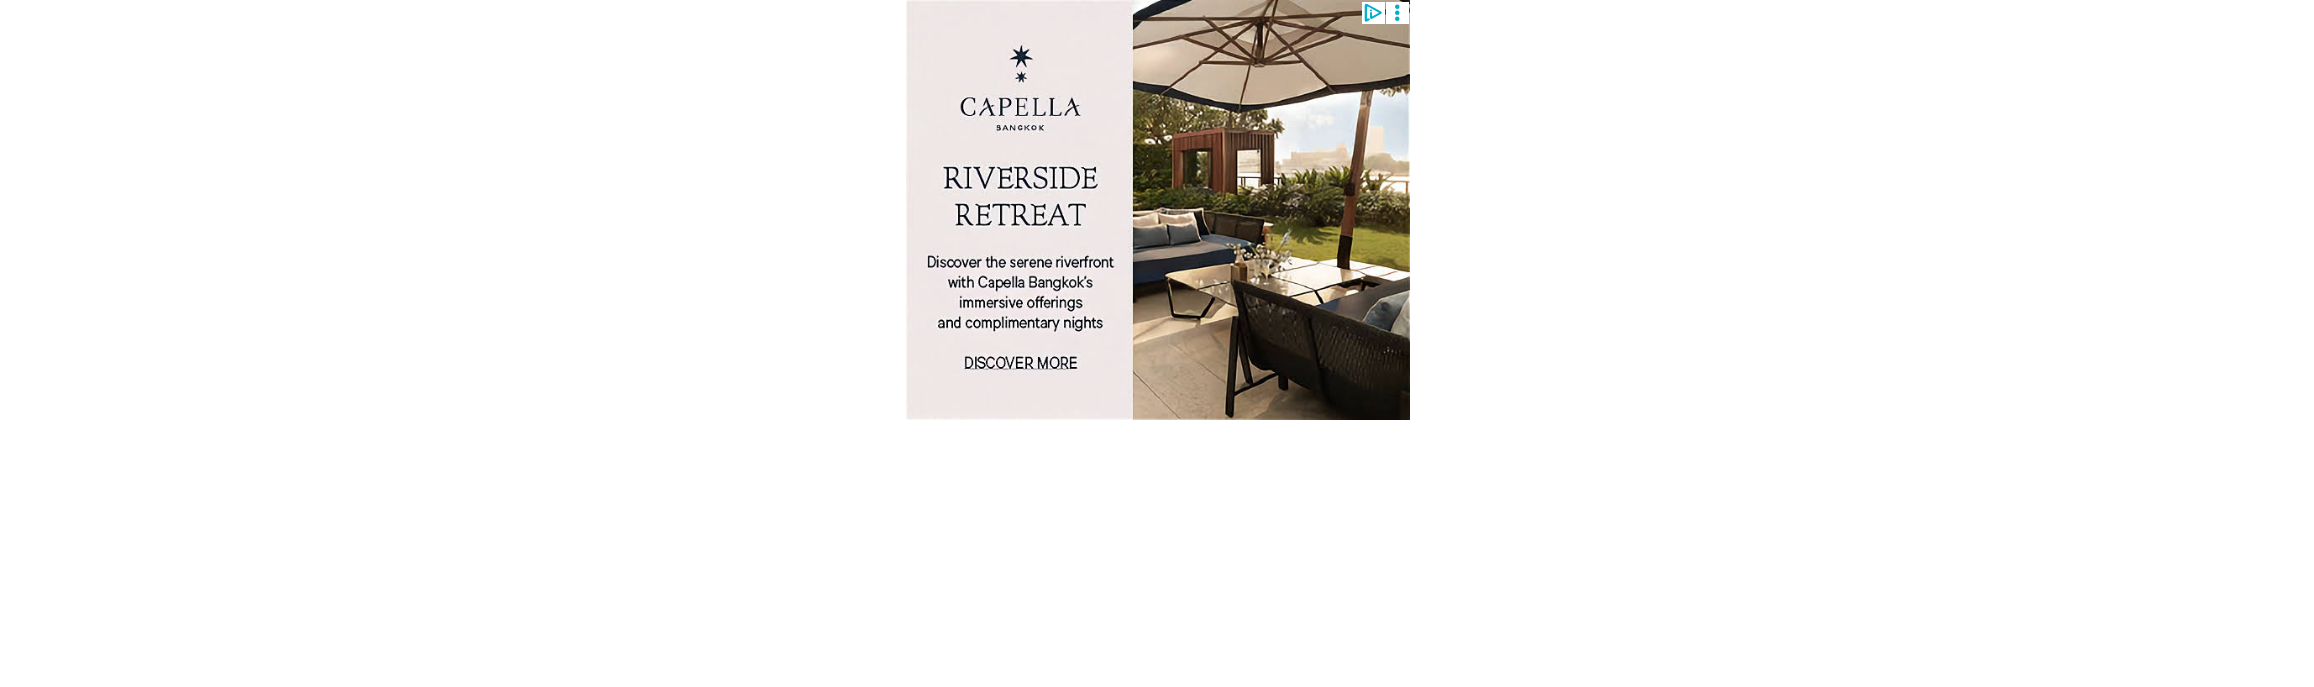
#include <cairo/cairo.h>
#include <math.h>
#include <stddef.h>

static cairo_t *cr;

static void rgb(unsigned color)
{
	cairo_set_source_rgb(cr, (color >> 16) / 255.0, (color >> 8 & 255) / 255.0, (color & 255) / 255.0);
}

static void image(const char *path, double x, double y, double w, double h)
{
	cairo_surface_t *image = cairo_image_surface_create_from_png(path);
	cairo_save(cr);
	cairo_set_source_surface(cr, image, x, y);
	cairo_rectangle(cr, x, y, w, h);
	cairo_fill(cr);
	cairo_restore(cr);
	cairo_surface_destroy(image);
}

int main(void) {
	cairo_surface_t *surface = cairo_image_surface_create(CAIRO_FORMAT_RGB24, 2314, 687);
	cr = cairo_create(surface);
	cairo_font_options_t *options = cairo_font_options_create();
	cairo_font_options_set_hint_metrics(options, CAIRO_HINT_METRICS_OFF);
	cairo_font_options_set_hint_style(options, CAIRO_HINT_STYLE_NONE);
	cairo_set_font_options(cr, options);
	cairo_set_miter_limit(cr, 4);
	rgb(0xffffff);
	cairo_paint(cr);
	image("img/1.png", 906, 0, 504, 420);
	rgb(0xffffff);
	cairo_rectangle(cr, 1362, 2, 23, 22);
	cairo_fill(cr);
	image("img/2.png", 1364, 3, 18, 19);
	cairo_rectangle(cr, 1386, 2, 23, 22);
	cairo_fill(cr);
	image("img/3.png", 1395, 4, 5, 17);
	cairo_surface_write_to_png(surface, "page.png");
	cairo_font_options_destroy(options);
	cairo_destroy(cr);
	cairo_surface_destroy(surface);
	return 0;
}
